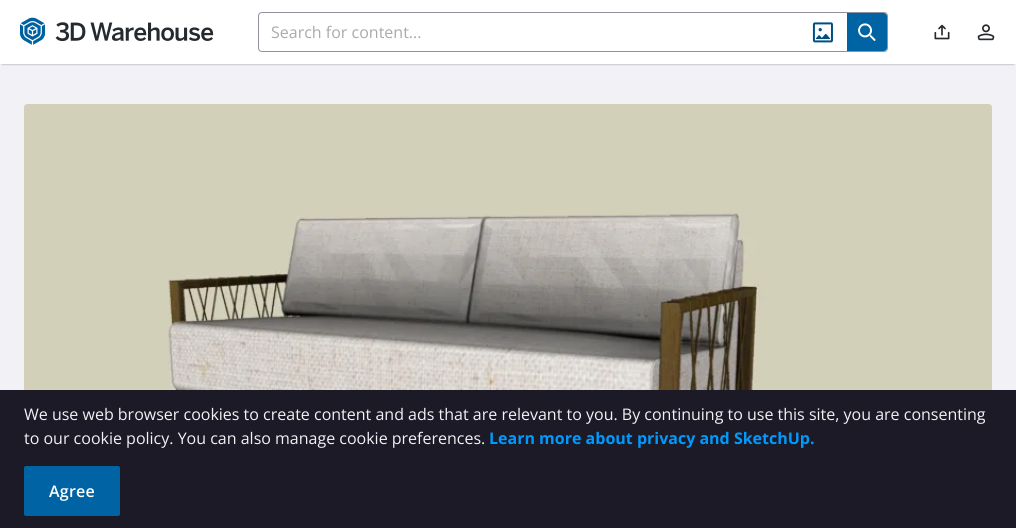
#include <cairo/cairo.h>
#include <math.h>
#include <stddef.h>

static cairo_t *cr;

static void rgb(unsigned color)
{
	cairo_set_source_rgb(cr, (color >> 16) / 255.0, (color >> 8 & 255) / 255.0, (color & 255) / 255.0);
}

static void tracked(double x, double y, const char *s, double letter, double word)
{
	cairo_move_to(cr, x, y);
	while (*s) {
		char ch[5] = {0};
		int n = 0;
		do ch[n++] = *s++; while ((*s & 0xC0) == 0x80);
		cairo_show_text(cr, ch);
		cairo_rel_move_to(cr, letter + word * (*ch == ' '), 0);
	}
}

static void rrect(double x, double y, double w, double h, double r)
{
	cairo_new_sub_path(cr);
	cairo_arc(cr, x + w - r, y + h - r, r, 0, M_PI / 2);
	cairo_arc(cr, x + r, y + h - r, r, M_PI / 2, M_PI);
	cairo_arc(cr, x + r, y + r, r, M_PI, 1.5 * M_PI);
	cairo_arc(cr, x + w - r, y + r, r, 1.5 * M_PI, 2 * M_PI);
	cairo_close_path(cr);
}

static void soft_shadow(double x, double y, double w, double h, double r, double blur, double alpha)
{
	cairo_push_group_with_content(cr, CAIRO_CONTENT_ALPHA);
	cairo_set_operator(cr, CAIRO_OPERATOR_SOURCE);
	for (int i = 15; i >= -15 && fmin(w, h) + blur * i / 3 > 0; i -= 2) {
		double e = blur * i / 6;
		cairo_set_source_rgba(cr, 0, 0, 0, alpha * erfc((i - 1) / 8.5) / 2);
		rrect(x - e, y - e, w + 2 * e, h + 2 * e, fmax(0, fmin(r + e + blur * .6, fmin(w, h) / 2 + e)));
		cairo_fill(cr);
	}
	cairo_pattern_t *soft = cairo_pop_group(cr);
	cairo_mask(cr, soft);
	cairo_pattern_destroy(soft);
}

static void image(const char *path, double x, double y, double w, double h)
{
	cairo_surface_t *image = cairo_image_surface_create_from_png(path);
	cairo_save(cr);
	cairo_set_source_surface(cr, image, x, y);
	cairo_rectangle(cr, x, y, w, h);
	cairo_fill(cr);
	cairo_restore(cr);
	cairo_surface_destroy(image);
}

int main(void) {
	cairo_surface_t *surface = cairo_image_surface_create(CAIRO_FORMAT_RGB24, 1016, 528);
	cr = cairo_create(surface);
	cairo_font_options_t *options = cairo_font_options_create();
	cairo_font_options_set_hint_metrics(options, CAIRO_HINT_METRICS_OFF);
	cairo_font_options_set_hint_style(options, CAIRO_HINT_STYLE_NONE);
	cairo_set_font_options(cr, options);
	cairo_set_miter_limit(cr, 4);
	rgb(0xf1f1f6);
	cairo_paint(cr);
	rgb(0x90939f);
	soft_shadow(2, 4, 1012, 60, 0, 1, 1);
	rgb(0xffffff);
	cairo_rectangle(cr, 0, 0, 1016, 64);
	cairo_fill(cr);
	image("img/1.png", 20, 17, 25, 28);
	image("img/2.png", 55, 22, 159, 20);
	rrect(258.5, 12.5, 629, 39, 3.5);
	rgb(0x90939f);
	cairo_set_line_width(cr, 1);
	cairo_stroke(cr);
	image("img/3.png", 812, 22, 21, 21);
	rgb(0x0063a3);
	cairo_new_path(cr);
	cairo_move_to(cr, 847, 13);
	cairo_line_to(cr, 884, 13);
	cairo_curve_to(cr, 885.5, 13, 887, 14.5, 887, 16);
	cairo_line_to(cr, 887, 48);
	cairo_curve_to(cr, 887, 49.5, 885.5, 51, 884, 51);
	cairo_line_to(cr, 847, 51);
	cairo_close_path(cr);
	cairo_fill(cr);
	image("img/4.png", 858, 23, 18, 18);
	image("img/5.png", 934, 24, 16, 16);
	image("img/6.png", 977, 24, 18, 17);
	image("img/7.png", 24, 104, 968, 286);
	rgb(0x1b1a26);
	cairo_rectangle(cr, 0, 390, 1016, 138);
	cairo_fill(cr);
	rgb(0x0063a3);
	rrect(24.5, 466.5, 95, 49, 1.5);
	cairo_fill_preserve(cr);
	cairo_stroke(cr);
	cairo_select_font_face(cr, "Open Sans", CAIRO_FONT_SLANT_NORMAL, CAIRO_FONT_WEIGHT_NORMAL);
	cairo_set_font_size(cr, 16);
	rgb(0xa8aaab);
	cairo_move_to(cr, 271, 38);
	cairo_show_text(cr, "Search for content...");
	rgb(0xf1f1f6);
	cairo_move_to(cr, 24, 420);
	cairo_show_text(cr, "We use web browser cookies to create content and ads that are relevant to you. By continuing to use this site, you are consenting");
	cairo_move_to(cr, 24, 444);
	cairo_show_text(cr, "to our cookie policy. You can also manage cookie preferences.");
	cairo_select_font_face(cr, "Open Sans", CAIRO_FONT_SLANT_NORMAL, CAIRO_FONT_WEIGHT_BOLD);
	rgb(0x0099fe);
	cairo_move_to(cr, 489, 444);
	cairo_show_text(cr, "Learn more about privacy and SketchUp.");
	cairo_select_font_face(cr, "Open Sans SemiBold", CAIRO_FONT_SLANT_NORMAL, CAIRO_FONT_WEIGHT_NORMAL);
	rgb(0xffffff);
	tracked(49, 497, "Agree", 0.25, 0);
	cairo_surface_write_to_png(surface, "page.png");
	cairo_font_options_destroy(options);
	cairo_destroy(cr);
	cairo_surface_destroy(surface);
	return 0;
}
